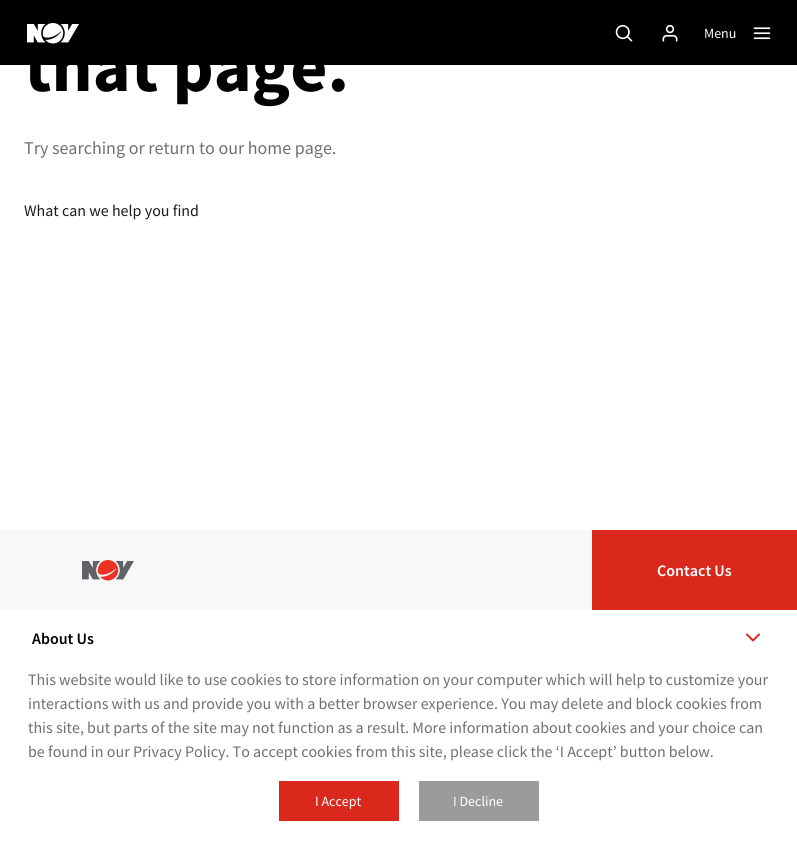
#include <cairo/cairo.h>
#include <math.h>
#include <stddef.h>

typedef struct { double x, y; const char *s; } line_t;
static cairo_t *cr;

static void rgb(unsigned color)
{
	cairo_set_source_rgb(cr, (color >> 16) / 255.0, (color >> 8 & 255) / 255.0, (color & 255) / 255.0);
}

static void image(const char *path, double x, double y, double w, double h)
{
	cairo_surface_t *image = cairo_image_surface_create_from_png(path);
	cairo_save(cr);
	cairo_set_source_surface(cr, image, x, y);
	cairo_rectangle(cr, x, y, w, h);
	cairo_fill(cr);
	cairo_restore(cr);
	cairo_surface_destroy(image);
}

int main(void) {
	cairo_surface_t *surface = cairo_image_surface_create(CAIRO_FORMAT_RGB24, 797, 845);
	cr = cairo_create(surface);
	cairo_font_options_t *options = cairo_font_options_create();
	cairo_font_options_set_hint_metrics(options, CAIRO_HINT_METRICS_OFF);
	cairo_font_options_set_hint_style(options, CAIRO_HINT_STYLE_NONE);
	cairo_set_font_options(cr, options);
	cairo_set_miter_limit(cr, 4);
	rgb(0xffffff);
	cairo_paint(cr);
	rgb(0x000000);
	cairo_rectangle(cr, 0, 0, 797, 65);
	cairo_fill(cr);
	image("img/2.png", 615, 25, 18, 17);
	image("img/3.png", 662, 24, 16, 18);
	image("img/4.png", 753, 27, 18, 13);
	rgb(0xf8f8f8);
	cairo_rectangle(cr, 0, 530, 592, 80);
	cairo_fill(cr);
	image("img/5.png", 82, 560, 52, 21);
	rgb(0xda291c);
	cairo_rectangle(cr, 592, 530, 205, 80);
	cairo_fill(cr);
	image("img/6.png", 746, 633, 14, 9);
	cairo_rectangle(cr, 279, 781, 120, 40);
	cairo_fill(cr);
	rgb(0x9b9b9b);
	cairo_rectangle(cr, 419, 781, 120, 40);
	cairo_fill(cr);
	cairo_select_font_face(cr, "Source Sans Pro", CAIRO_FONT_SLANT_NORMAL, CAIRO_FONT_WEIGHT_NORMAL);
	cairo_set_font_size(cr, 14);
	rgb(0xffffff);
	cairo_move_to(cr, 704, 38);
	cairo_show_text(cr, "Menu");
	cairo_select_font_face(cr, "Source Sans Pro", CAIRO_FONT_SLANT_NORMAL, CAIRO_FONT_WEIGHT_BOLD);
	cairo_set_font_size(cr, 72);
	rgb(0x000000);
	cairo_move_to(cr, 24, 91);
	cairo_show_text(cr, "that page.");
	image("img/1.png", 27, 23, 52, 21);
	cairo_select_font_face(cr, "Source Sans Pro", CAIRO_FONT_SLANT_NORMAL, CAIRO_FONT_WEIGHT_NORMAL);
	cairo_set_font_size(cr, 18);
	rgb(0x707070);
	cairo_move_to(cr, 24, 154);
	cairo_show_text(cr, "Try searching or return to our home page.");
	cairo_set_font_size(cr, 16);
	rgb(0x1b1b1b);
	cairo_move_to(cr, 24, 216);
	cairo_show_text(cr, "What can we help you find");
	cairo_select_font_face(cr, "Source Sans Pro SemiBold", CAIRO_FONT_SLANT_NORMAL, CAIRO_FONT_WEIGHT_NORMAL);
	rgb(0xffffff);
	cairo_move_to(cr, 657, 576);
	cairo_show_text(cr, "Contact Us");
	rgb(0x000000);
	cairo_move_to(cr, 32, 644);
	cairo_show_text(cr, "About Us");
	cairo_select_font_face(cr, "Source Sans Pro", CAIRO_FONT_SLANT_NORMAL, CAIRO_FONT_WEIGHT_NORMAL);
	rgb(0x707070);
	{
		static const line_t items[] = {
			{28, 685, "This website would like to use cookies to store information on your computer which will help to customize your"},
			{28, 709, "interactions with us and provide you with a better browser experience. You may delete and block cookies from"},
			{28, 733, "this site, but parts of the site may not function as a result. More information about cookies and your choice can"},
			{28, 757, "be found in our Privacy Policy. To accept cookies from this site, please click the ‘I Accept’ button below."},
		};
		for (size_t i = 0; i < sizeof items / sizeof *items; i++) {
			cairo_move_to(cr, items[i].x, items[i].y);
			cairo_show_text(cr, items[i].s);
		}
	}
	cairo_set_font_size(cr, 14);
	rgb(0xffffff);
	cairo_move_to(cr, 315, 806);
	cairo_show_text(cr, "I Accept");
	cairo_move_to(cr, 453, 806);
	cairo_show_text(cr, "I Decline");
	cairo_surface_write_to_png(surface, "page.png");
	cairo_font_options_destroy(options);
	cairo_destroy(cr);
	cairo_surface_destroy(surface);
	return 0;
}
